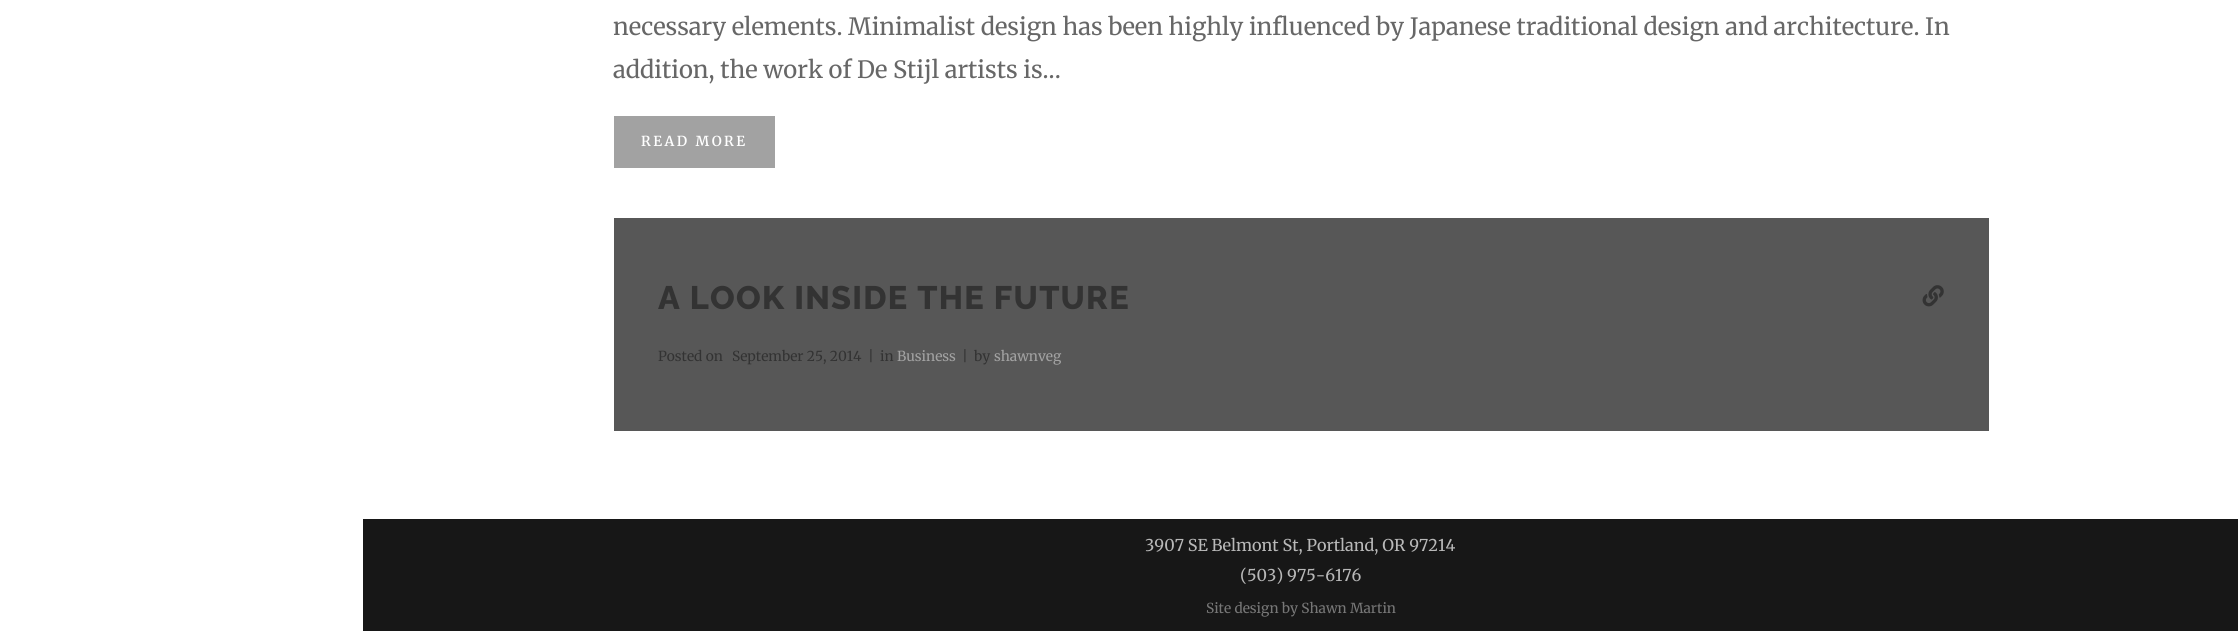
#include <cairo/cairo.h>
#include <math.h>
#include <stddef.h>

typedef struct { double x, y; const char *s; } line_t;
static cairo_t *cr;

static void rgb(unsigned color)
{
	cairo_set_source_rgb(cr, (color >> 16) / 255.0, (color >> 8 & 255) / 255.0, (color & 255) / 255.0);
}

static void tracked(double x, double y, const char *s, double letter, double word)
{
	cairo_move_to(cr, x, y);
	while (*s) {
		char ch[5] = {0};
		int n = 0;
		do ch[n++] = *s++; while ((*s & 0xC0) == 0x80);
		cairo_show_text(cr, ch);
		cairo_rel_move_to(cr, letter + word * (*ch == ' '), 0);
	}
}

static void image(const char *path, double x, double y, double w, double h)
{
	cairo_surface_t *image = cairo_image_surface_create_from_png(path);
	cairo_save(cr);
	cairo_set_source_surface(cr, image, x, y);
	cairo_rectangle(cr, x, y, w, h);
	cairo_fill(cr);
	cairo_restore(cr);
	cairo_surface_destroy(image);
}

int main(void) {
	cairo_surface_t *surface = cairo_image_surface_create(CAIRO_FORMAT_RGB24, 2238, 631);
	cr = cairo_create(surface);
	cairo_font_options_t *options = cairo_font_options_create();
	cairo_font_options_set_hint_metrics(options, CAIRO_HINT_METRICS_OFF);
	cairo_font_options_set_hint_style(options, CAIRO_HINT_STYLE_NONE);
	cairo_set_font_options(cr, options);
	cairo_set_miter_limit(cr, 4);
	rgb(0xffffff);
	cairo_paint(cr);
	rgb(0xa2a2a2);
	cairo_rectangle(cr, 614, 116, 161, 52);
	cairo_fill(cr);
	rgb(0x575757);
	cairo_rectangle(cr, 614, 218, 1375, 213);
	cairo_fill(cr);
	image("img/1.png", 1922, 285, 22, 22);
	rgb(0x171717);
	cairo_rectangle(cr, 363, 519, 1875, 112);
	cairo_fill(cr);
	cairo_select_font_face(cr, "Merriweather", CAIRO_FONT_SLANT_NORMAL, CAIRO_FONT_WEIGHT_NORMAL);
	cairo_set_font_size(cr, 23.75);
	rgb(0x676767);
	cairo_move_to(cr, 613, 35);
	cairo_show_text(cr, "necessary elements. Minimalist design has been highly influenced by Japanese traditional design and architecture. In");
	cairo_move_to(cr, 613, 78);
	cairo_show_text(cr, "addition, the work of De Stijl artists is...");
	cairo_select_font_face(cr, "Merriweather SemiBold", CAIRO_FONT_SLANT_NORMAL, CAIRO_FONT_WEIGHT_NORMAL);
	cairo_set_font_size(cr, 13.75);
	rgb(0xffffff);
	tracked(641, 146, "READ MORE", 2.5, 0);
	cairo_select_font_face(cr, "Raleway ExtraBold", CAIRO_FONT_SLANT_NORMAL, CAIRO_FONT_WEIGHT_NORMAL);
	cairo_set_font_size(cr, 32.5);
	rgb(0x333333);
	tracked(658, 309, "A LOOK INSIDE THE FUTURE", 1.25, 0);
	cairo_select_font_face(cr, "Merriweather", CAIRO_FONT_SLANT_NORMAL, CAIRO_FONT_WEIGHT_NORMAL);
	cairo_set_font_size(cr, 13.75);
	{
		static const line_t items[] = {
			{658, 361, "Posted on"},
			{732, 361, "September 25, 2014"},
			{868, 361, "|"},
			{880, 361, "in"},
		};
		for (size_t i = 0; i < sizeof items / sizeof *items; i++) {
			cairo_move_to(cr, items[i].x, items[i].y);
			cairo_show_text(cr, items[i].s);
		}
	}
	rgb(0xa2a2a2);
	cairo_move_to(cr, 897, 361);
	cairo_show_text(cr, "Business");
	rgb(0x333333);
	cairo_move_to(cr, 962, 361);
	cairo_show_text(cr, "|");
	cairo_move_to(cr, 974, 361);
	cairo_show_text(cr, "by");
	rgb(0xa2a2a2);
	cairo_move_to(cr, 994, 361);
	cairo_show_text(cr, "shawnveg");
	cairo_set_font_size(cr, 16.25);
	rgb(0xb8b8b8);
	cairo_move_to(cr, 1145, 551);
	cairo_show_text(cr, "3907 SE Belmont St, Portland, OR 97214");
	cairo_move_to(cr, 1240, 581);
	cairo_show_text(cr, "(503) 975-6176");
	cairo_set_font_size(cr, 13.75);
	rgb(0x777777);
	cairo_move_to(cr, 1206, 613);
	cairo_show_text(cr, "Site design by Shawn Martin");
	cairo_surface_write_to_png(surface, "page.png");
	cairo_font_options_destroy(options);
	cairo_destroy(cr);
	cairo_surface_destroy(surface);
	return 0;
}
